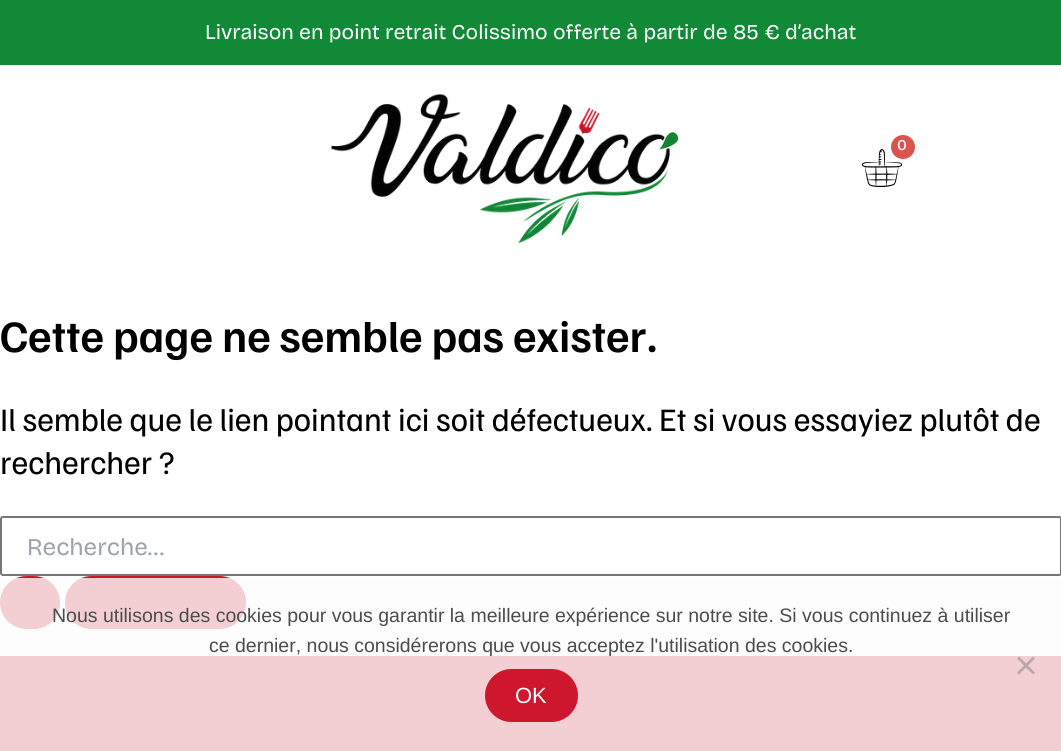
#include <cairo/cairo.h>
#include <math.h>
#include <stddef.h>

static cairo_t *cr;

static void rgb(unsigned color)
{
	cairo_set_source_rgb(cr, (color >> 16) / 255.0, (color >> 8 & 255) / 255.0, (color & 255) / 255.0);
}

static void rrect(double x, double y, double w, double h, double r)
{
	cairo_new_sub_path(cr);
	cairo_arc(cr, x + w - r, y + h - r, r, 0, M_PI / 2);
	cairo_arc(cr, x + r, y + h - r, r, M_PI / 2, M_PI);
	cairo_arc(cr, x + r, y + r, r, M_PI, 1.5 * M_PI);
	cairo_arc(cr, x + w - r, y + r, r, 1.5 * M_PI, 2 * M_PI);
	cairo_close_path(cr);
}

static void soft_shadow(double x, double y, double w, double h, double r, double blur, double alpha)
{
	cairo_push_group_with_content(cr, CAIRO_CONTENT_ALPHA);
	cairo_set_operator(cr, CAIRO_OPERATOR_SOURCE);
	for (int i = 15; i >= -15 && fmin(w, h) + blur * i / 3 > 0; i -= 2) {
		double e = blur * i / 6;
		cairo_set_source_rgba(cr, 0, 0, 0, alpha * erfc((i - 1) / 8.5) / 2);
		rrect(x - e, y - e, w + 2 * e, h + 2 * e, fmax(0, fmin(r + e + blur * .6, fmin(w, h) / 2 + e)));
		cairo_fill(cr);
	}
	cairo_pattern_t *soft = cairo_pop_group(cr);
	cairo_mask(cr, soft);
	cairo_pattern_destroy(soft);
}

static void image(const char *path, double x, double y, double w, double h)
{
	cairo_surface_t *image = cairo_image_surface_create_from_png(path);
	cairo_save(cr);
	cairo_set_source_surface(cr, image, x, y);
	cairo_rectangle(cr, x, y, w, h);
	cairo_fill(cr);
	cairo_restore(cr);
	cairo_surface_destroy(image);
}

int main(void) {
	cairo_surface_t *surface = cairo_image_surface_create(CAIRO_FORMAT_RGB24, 1061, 751);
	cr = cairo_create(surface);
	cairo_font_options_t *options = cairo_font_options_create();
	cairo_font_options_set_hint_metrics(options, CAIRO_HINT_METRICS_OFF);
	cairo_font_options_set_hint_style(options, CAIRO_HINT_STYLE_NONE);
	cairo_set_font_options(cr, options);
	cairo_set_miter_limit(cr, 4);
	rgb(0xffffff);
	cairo_paint(cr);
	rgb(0x128937);
	cairo_rectangle(cr, 0, 0, 1061, 65);
	cairo_fill(cr);
	image("img/1.png", 331, 94, 348, 149);
	image("img/2.png", 861, 149, 42, 39);
	rgb(0xd9534f);
	cairo_arc(cr, 903, 147, 12, 0, 2 * M_PI);
	cairo_fill(cr);
	rrect(1, 517, 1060, 58, 2);
	rgb(0x767676);
	cairo_stroke(cr);
	rgb(0x000000);
	soft_shadow(0, 578, 60, 52, 26, 1.5, 0.05);
	rgb(0xce172c);
	rrect(0, 576, 60, 53, 26.5);
	cairo_fill(cr);
	rgb(0x000000);
	soft_shadow(65, 578, 181, 52, 26, 1.5, 0.05);
	rgb(0xce172c);
	rrect(65, 576, 181, 53, 26.5);
	cairo_fill(cr);
	cairo_rectangle(cr, 0, 656, 1061, 95);
	cairo_fill(cr);
	cairo_set_source_rgba(cr, 0.988, 0.988, 0.988, 0.8);
	cairo_rectangle(cr, 0, 578, 1061, 173);
	cairo_fill(cr);
	rgb(0xb9a7a9);
	cairo_new_path(cr);
	cairo_move_to(cr, 1033, 656.5);
	cairo_line_to(cr, 1035, 658.5);
	cairo_line_to(cr, 1019, 674.5);
	cairo_line_to(cr, 1017, 672.5);
	cairo_close_path(cr);
	cairo_fill(cr);
	cairo_new_path(cr);
	cairo_move_to(cr, 1017, 658.5);
	cairo_line_to(cr, 1019, 656.5);
	cairo_line_to(cr, 1035, 672.5);
	cairo_line_to(cr, 1033, 674.5);
	cairo_close_path(cr);
	cairo_fill(cr);
	rgb(0xce172c);
	rrect(485, 669, 93, 53, 26.5);
	cairo_fill(cr);
	cairo_select_font_face(cr, "Bricolage Grotesque", CAIRO_FONT_SLANT_NORMAL, CAIRO_FONT_WEIGHT_NORMAL);
	cairo_set_font_size(cr, 21);
	rgb(0xffffff);
	cairo_move_to(cr, 205, 39);
	cairo_show_text(cr, "Livraison en point retrait Colissimo offerte à partir de 85 € d’achat");
	cairo_select_font_face(cr, "Bricolage Grotesque Medium", CAIRO_FONT_SLANT_NORMAL, CAIRO_FONT_WEIGHT_NORMAL);
	cairo_set_font_size(cr, 15);
	cairo_move_to(cr, 897, 150);
	cairo_show_text(cr, "0");
	cairo_select_font_face(cr, "Familjen Grotesk SemiBold", CAIRO_FONT_SLANT_NORMAL, CAIRO_FONT_WEIGHT_NORMAL);
	cairo_set_font_size(cr, 45);
	rgb(0x000000);
	cairo_move_to(cr, 0, 352);
	cairo_show_text(cr, "Cette page ne semble pas exister.");
	cairo_select_font_face(cr, "Familjen Grotesk", CAIRO_FONT_SLANT_NORMAL, CAIRO_FONT_WEIGHT_NORMAL);
	cairo_set_font_size(cr, 32.8);
	cairo_move_to(cr, 0, 431);
	cairo_show_text(cr, "Il semble que le lien pointant ici soit défectueux. Et si vous essayiez plutôt de");
	cairo_move_to(cr, 0, 474);
	cairo_show_text(cr, "rechercher ?");
	cairo_select_font_face(cr, "Bricolage Grotesque", CAIRO_FONT_SLANT_NORMAL, CAIRO_FONT_WEIGHT_NORMAL);
	cairo_set_font_size(cr, 24);
	rgb(0x9ca3af);
	cairo_move_to(cr, 27, 555);
	cairo_show_text(cr, "Recherche…");
	cairo_select_font_face(cr, "Liberation Sans", CAIRO_FONT_SLANT_NORMAL, CAIRO_FONT_WEIGHT_NORMAL);
	cairo_set_font_size(cr, 19.5);
	rgb(0x4c4c4c);
	cairo_move_to(cr, 52, 622);
	cairo_show_text(cr, "Nous utilisons des cookies pour vous garantir la meilleure expérience sur notre site. Si vous continuez à utiliser");
	cairo_move_to(cr, 209, 652);
	cairo_show_text(cr, "ce dernier, nous considérerons que vous acceptez l'utilisation des cookies.");
	cairo_set_font_size(cr, 22);
	rgb(0xffffff);
	cairo_move_to(cr, 515, 703);
	cairo_show_text(cr, "OK");
	cairo_surface_write_to_png(surface, "page.png");
	cairo_font_options_destroy(options);
	cairo_destroy(cr);
	cairo_surface_destroy(surface);
	return 0;
}
